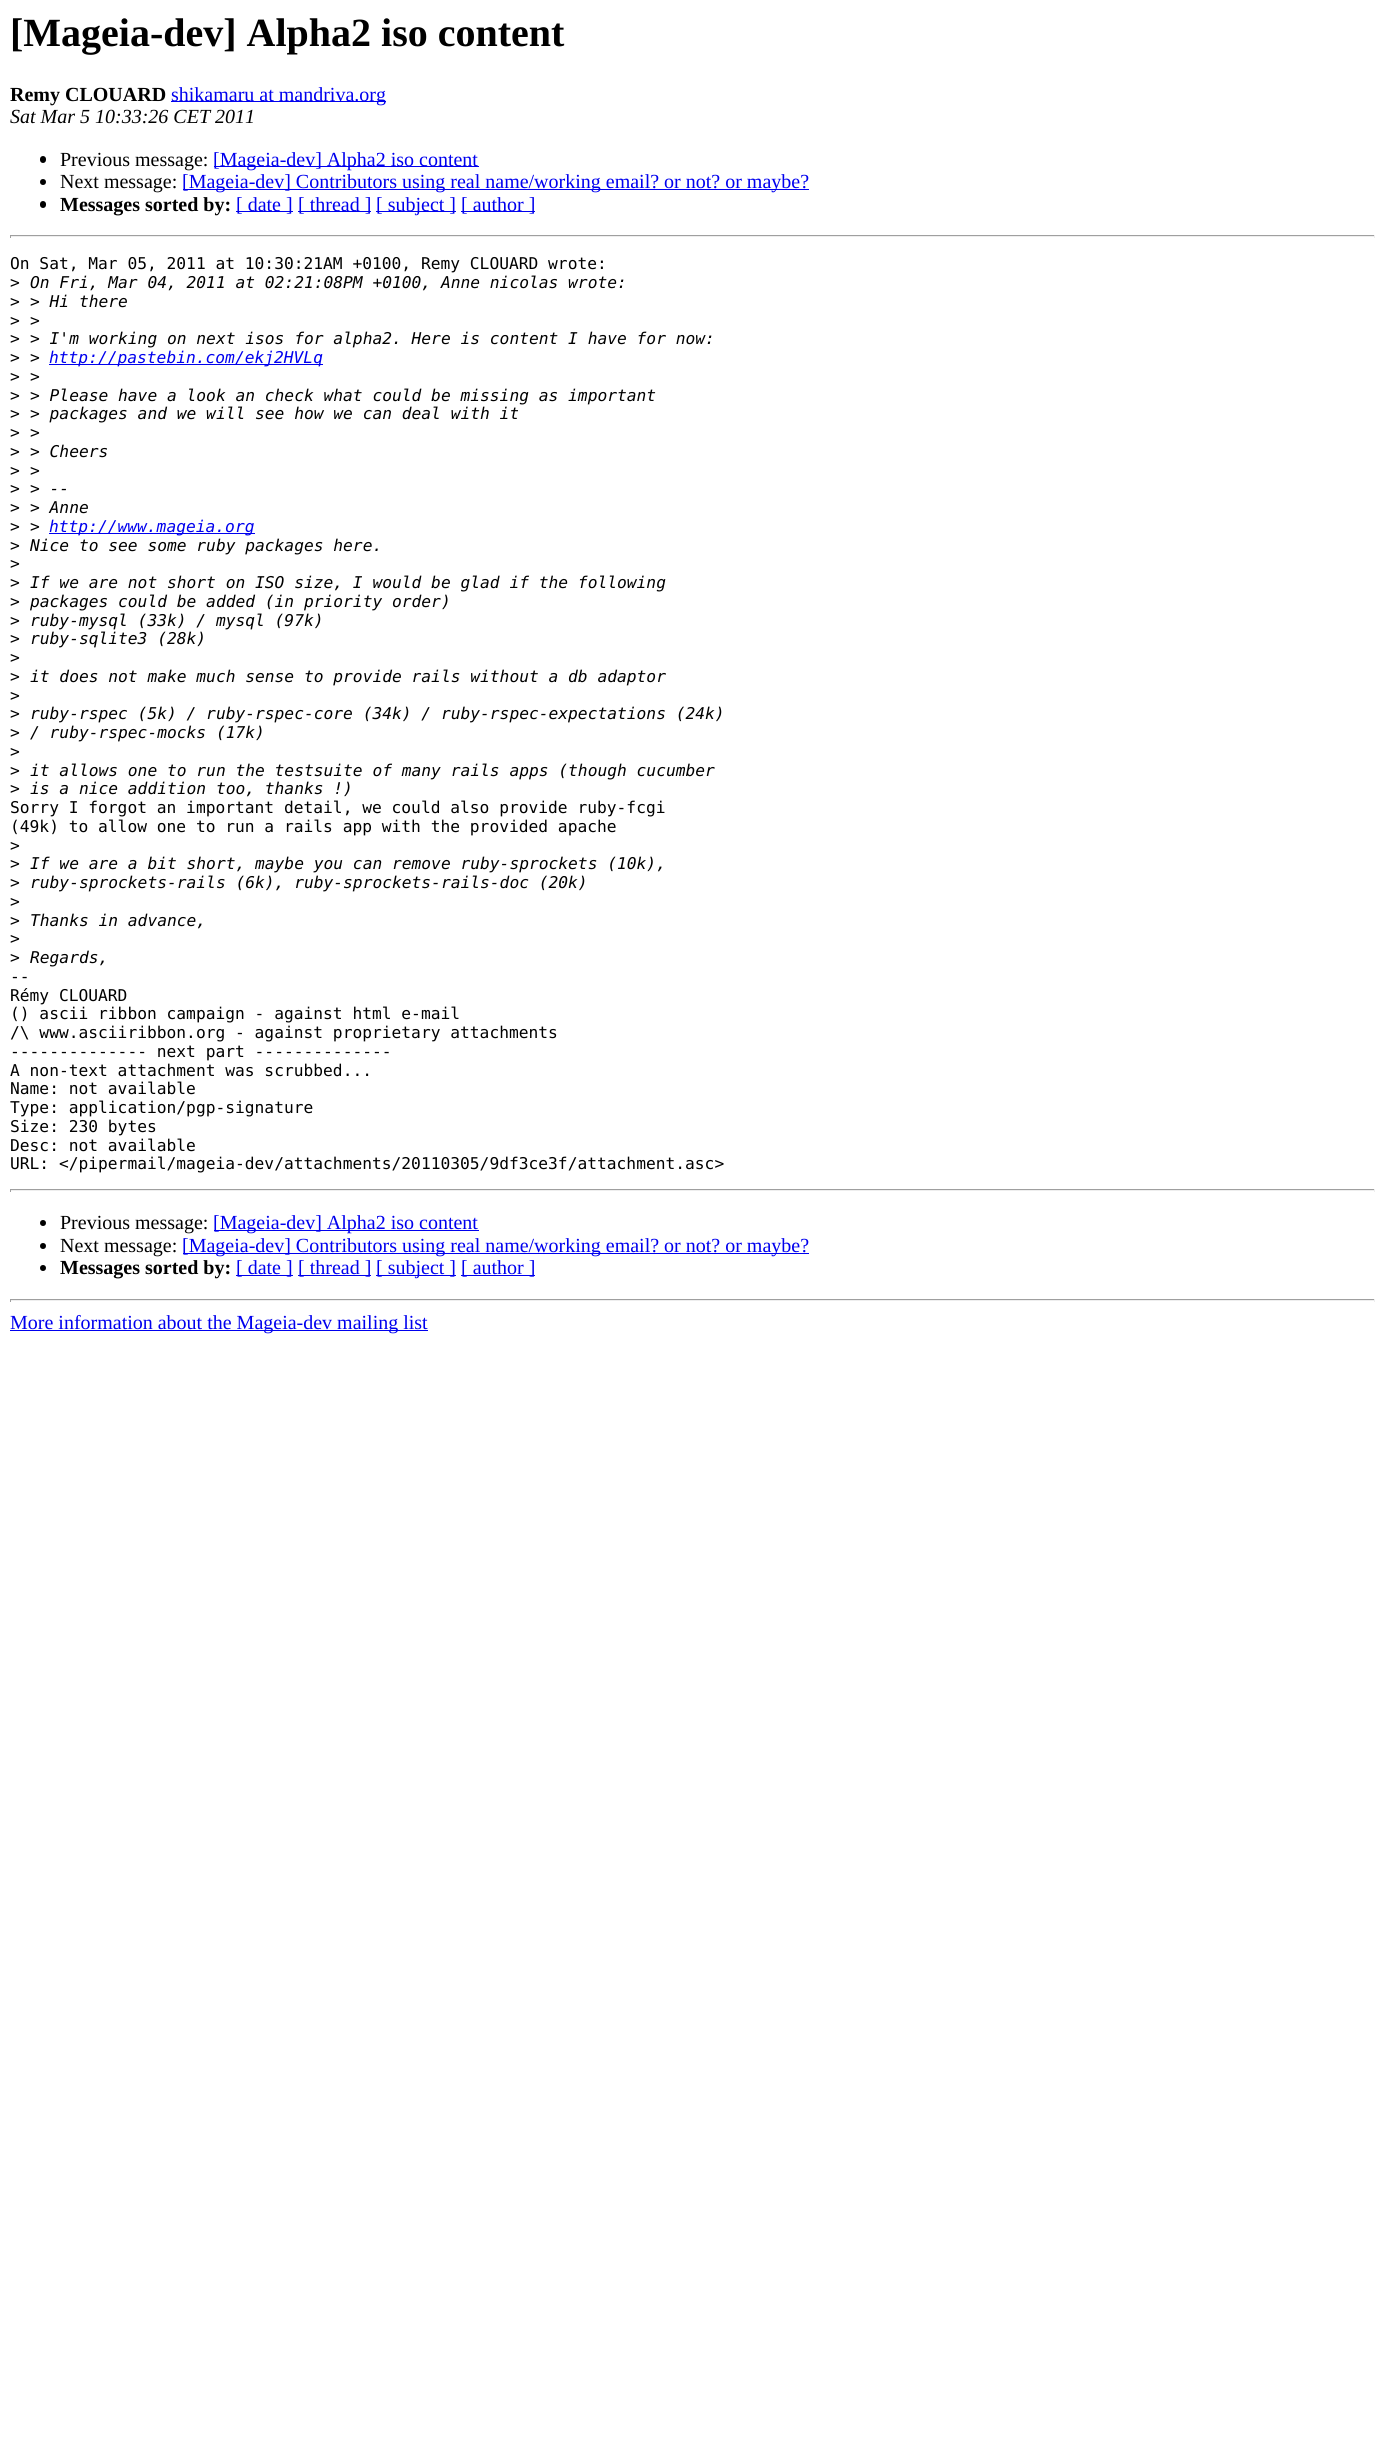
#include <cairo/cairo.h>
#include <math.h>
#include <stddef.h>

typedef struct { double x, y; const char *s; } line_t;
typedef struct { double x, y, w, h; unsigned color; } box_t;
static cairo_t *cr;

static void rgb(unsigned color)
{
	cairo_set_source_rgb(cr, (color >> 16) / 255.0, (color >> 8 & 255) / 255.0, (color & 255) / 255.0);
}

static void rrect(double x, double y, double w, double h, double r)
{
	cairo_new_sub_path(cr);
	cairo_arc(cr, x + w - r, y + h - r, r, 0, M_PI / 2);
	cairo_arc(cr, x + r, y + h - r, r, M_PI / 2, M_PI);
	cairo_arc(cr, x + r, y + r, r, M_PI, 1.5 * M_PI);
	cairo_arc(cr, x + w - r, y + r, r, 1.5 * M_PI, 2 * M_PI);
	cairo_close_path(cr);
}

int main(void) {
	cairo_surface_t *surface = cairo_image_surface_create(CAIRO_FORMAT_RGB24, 1385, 2440);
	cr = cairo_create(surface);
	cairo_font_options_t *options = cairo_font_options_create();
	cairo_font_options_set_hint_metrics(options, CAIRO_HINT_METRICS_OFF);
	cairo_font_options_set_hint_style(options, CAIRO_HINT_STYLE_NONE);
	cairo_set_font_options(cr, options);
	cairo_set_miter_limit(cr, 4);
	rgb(0xffffff);
	cairo_paint(cr);
	rgb(0x0000ee);
	cairo_rectangle(cr, 171, 101, 215, 1);
	cairo_fill(cr);
	rgb(0x000000);
	rrect(40, 156, 6, 7, 3);
	cairo_fill(cr);
	rgb(0x0000ee);
	cairo_rectangle(cr, 214, 166, 265, 1);
	cairo_fill(cr);
	rgb(0x000000);
	cairo_arc(cr, 43, 182, 3, 0, 2 * M_PI);
	cairo_fill(cr);
	rgb(0x0000ee);
	cairo_rectangle(cr, 183, 189, 626, 1);
	cairo_fill(cr);
	rgb(0x000000);
	rrect(40, 201, 6, 7, 3);
	cairo_fill(cr);
	{
		static const box_t items[] = {
			{236, 211, 57, 1, 0x0000ee},
			{298, 211, 73, 1, 0x0000ee},
			{376, 211, 80, 1, 0x0000ee},
			{461, 211, 74, 1, 0x0000ee},
			{10, 235, 1365, 1, 0x9f9f9f},
			{1374, 235, 1, 3, 0xeeeeee},
			{10, 236, 1365, 1, 0xeeeeee},
			{10, 235, 1, 3, 0x9f9f9f},
			{49, 364, 274, 1, 0x0000ee},
			{49, 533, 206, 1, 0x0000ee},
			{10, 1189, 1365, 1, 0x9f9f9f},
			{1374, 1189, 1, 3, 0xeeeeee},
			{10, 1190, 1365, 1, 0xeeeeee},
			{10, 1189, 1, 3, 0x9f9f9f},
		};
		for (size_t i = 0; i < sizeof items / sizeof *items; i++) {
			rgb(items[i].color);
			cairo_rectangle(cr, items[i].x, items[i].y, items[i].w, items[i].h);
			cairo_fill(cr);
		}
	}
	rgb(0x000000);
	cairo_arc(cr, 43, 1223, 3, 0, 2 * M_PI);
	cairo_fill(cr);
	rgb(0x0000ee);
	cairo_rectangle(cr, 214, 1230, 265, 1);
	cairo_fill(cr);
	rgb(0x000000);
	cairo_arc(cr, 43, 1246, 3, 0, 2 * M_PI);
	cairo_fill(cr);
	rgb(0x0000ee);
	cairo_rectangle(cr, 183, 1253, 626, 1);
	cairo_fill(cr);
	rgb(0x000000);
	cairo_arc(cr, 43, 1268, 3, 0, 2 * M_PI);
	cairo_fill(cr);
	{
		static const box_t items[] = {
			{236, 1275, 57, 1, 0x0000ee},
			{298, 1275, 73, 1, 0x0000ee},
			{376, 1275, 80, 1, 0x0000ee},
			{461, 1275, 74, 1, 0x0000ee},
			{10, 1299, 1365, 1, 0x9f9f9f},
			{1374, 1299, 1, 3, 0xeeeeee},
			{10, 1300, 1365, 1, 0xeeeeee},
			{10, 1299, 1, 3, 0x9f9f9f},
			{10, 1330, 418, 1, 0x0000ee},
		};
		for (size_t i = 0; i < sizeof items / sizeof *items; i++) {
			rgb(items[i].color);
			cairo_rectangle(cr, items[i].x, items[i].y, items[i].w, items[i].h);
			cairo_fill(cr);
		}
	}
	cairo_select_font_face(cr, "Liberation Serif", CAIRO_FONT_SLANT_NORMAL, CAIRO_FONT_WEIGHT_BOLD);
	cairo_set_font_size(cr, 40);
	rgb(0x000000);
	cairo_move_to(cr, 10, 46);
	cairo_show_text(cr, "[Mageia-dev] Alpha2 iso content");
	cairo_set_font_size(cr, 20);
	cairo_move_to(cr, 10, 101);
	cairo_show_text(cr, "Remy CLOUARD");
	cairo_select_font_face(cr, "Liberation Serif", CAIRO_FONT_SLANT_NORMAL, CAIRO_FONT_WEIGHT_NORMAL);
	rgb(0x0000ee);
	cairo_move_to(cr, 171, 101);
	cairo_show_text(cr, "shikamaru at mandriva.org");
	cairo_select_font_face(cr, "Liberation Serif", CAIRO_FONT_SLANT_ITALIC, CAIRO_FONT_WEIGHT_NORMAL);
	rgb(0x000000);
	cairo_move_to(cr, 10, 123);
	cairo_show_text(cr, "Sat Mar 5 10:33:26 CET 2011");
	cairo_select_font_face(cr, "Liberation Serif", CAIRO_FONT_SLANT_NORMAL, CAIRO_FONT_WEIGHT_NORMAL);
	cairo_move_to(cr, 60, 166);
	cairo_show_text(cr, "Previous message:");
	rgb(0x0000ee);
	cairo_move_to(cr, 213, 166);
	cairo_show_text(cr, "[Mageia-dev] Alpha2 iso content");
	rgb(0x000000);
	cairo_move_to(cr, 60, 188);
	cairo_show_text(cr, "Next message:");
	rgb(0x0000ee);
	cairo_move_to(cr, 182, 188);
	cairo_show_text(cr, "[Mageia-dev] Contributors using real name/working email? or not? or maybe?");
	cairo_select_font_face(cr, "Liberation Serif", CAIRO_FONT_SLANT_NORMAL, CAIRO_FONT_WEIGHT_BOLD);
	rgb(0x000000);
	cairo_move_to(cr, 60, 211);
	cairo_show_text(cr, "Messages sorted by:");
	cairo_select_font_face(cr, "Liberation Serif", CAIRO_FONT_SLANT_NORMAL, CAIRO_FONT_WEIGHT_NORMAL);
	rgb(0x0000ee);
	{
		static const line_t items[] = {
			{236, 211, "[ date ]"},
			{298, 211, "[ thread ]"},
			{376, 211, "[ subject ]"},
			{461, 211, "[ author ]"},
		};
		for (size_t i = 0; i < sizeof items / sizeof *items; i++) {
			cairo_move_to(cr, items[i].x, items[i].y);
			cairo_show_text(cr, items[i].s);
		}
	}
	cairo_select_font_face(cr, "DejaVu Sans Mono", CAIRO_FONT_SLANT_NORMAL, CAIRO_FONT_WEIGHT_NORMAL);
	cairo_set_font_size(cr, 16.25);
	rgb(0x000000);
	cairo_move_to(cr, 10, 269);
	cairo_show_text(cr, "On Sat, Mar 05, 2011 at 10:30:21AM +0100, Remy CLOUARD wrote:");
	cairo_move_to(cr, 10, 288);
	cairo_show_text(cr, ">");
	cairo_select_font_face(cr, "DejaVu Sans Mono", CAIRO_FONT_SLANT_ITALIC, CAIRO_FONT_WEIGHT_NORMAL);
	cairo_move_to(cr, 30, 288);
	cairo_show_text(cr, "On Fri, Mar 04, 2011 at 02:21:08PM +0100, Anne nicolas wrote:");
	cairo_select_font_face(cr, "DejaVu Sans Mono", CAIRO_FONT_SLANT_NORMAL, CAIRO_FONT_WEIGHT_NORMAL);
	cairo_move_to(cr, 10, 307);
	cairo_show_text(cr, ">");
	cairo_select_font_face(cr, "DejaVu Sans Mono", CAIRO_FONT_SLANT_ITALIC, CAIRO_FONT_WEIGHT_NORMAL);
	cairo_move_to(cr, 30, 307);
	cairo_show_text(cr, "> Hi there");
	cairo_select_font_face(cr, "DejaVu Sans Mono", CAIRO_FONT_SLANT_NORMAL, CAIRO_FONT_WEIGHT_NORMAL);
	cairo_move_to(cr, 10, 326);
	cairo_show_text(cr, ">");
	cairo_select_font_face(cr, "DejaVu Sans Mono", CAIRO_FONT_SLANT_ITALIC, CAIRO_FONT_WEIGHT_NORMAL);
	cairo_move_to(cr, 30, 326);
	cairo_show_text(cr, ">");
	cairo_select_font_face(cr, "DejaVu Sans Mono", CAIRO_FONT_SLANT_NORMAL, CAIRO_FONT_WEIGHT_NORMAL);
	cairo_move_to(cr, 10, 344);
	cairo_show_text(cr, ">");
	cairo_select_font_face(cr, "DejaVu Sans Mono", CAIRO_FONT_SLANT_ITALIC, CAIRO_FONT_WEIGHT_NORMAL);
	cairo_move_to(cr, 30, 344);
	cairo_show_text(cr, "> I'm working on next isos for alpha2. Here is content I have for now:");
	cairo_select_font_face(cr, "DejaVu Sans Mono", CAIRO_FONT_SLANT_NORMAL, CAIRO_FONT_WEIGHT_NORMAL);
	cairo_move_to(cr, 10, 363);
	cairo_show_text(cr, ">");
	cairo_select_font_face(cr, "DejaVu Sans Mono", CAIRO_FONT_SLANT_ITALIC, CAIRO_FONT_WEIGHT_NORMAL);
	cairo_move_to(cr, 30, 363);
	cairo_show_text(cr, ">");
	rgb(0x0000ee);
	cairo_move_to(cr, 49, 363);
	cairo_show_text(cr, "http://pastebin.com/ekj2HVLq");
	cairo_select_font_face(cr, "DejaVu Sans Mono", CAIRO_FONT_SLANT_NORMAL, CAIRO_FONT_WEIGHT_NORMAL);
	rgb(0x000000);
	cairo_move_to(cr, 10, 382);
	cairo_show_text(cr, ">");
	cairo_select_font_face(cr, "DejaVu Sans Mono", CAIRO_FONT_SLANT_ITALIC, CAIRO_FONT_WEIGHT_NORMAL);
	cairo_move_to(cr, 30, 382);
	cairo_show_text(cr, ">");
	cairo_select_font_face(cr, "DejaVu Sans Mono", CAIRO_FONT_SLANT_NORMAL, CAIRO_FONT_WEIGHT_NORMAL);
	cairo_move_to(cr, 10, 401);
	cairo_show_text(cr, ">");
	cairo_select_font_face(cr, "DejaVu Sans Mono", CAIRO_FONT_SLANT_ITALIC, CAIRO_FONT_WEIGHT_NORMAL);
	cairo_move_to(cr, 30, 401);
	cairo_show_text(cr, "> Please have a look an check what could be missing as important");
	cairo_select_font_face(cr, "DejaVu Sans Mono", CAIRO_FONT_SLANT_NORMAL, CAIRO_FONT_WEIGHT_NORMAL);
	cairo_move_to(cr, 10, 419);
	cairo_show_text(cr, ">");
	cairo_select_font_face(cr, "DejaVu Sans Mono", CAIRO_FONT_SLANT_ITALIC, CAIRO_FONT_WEIGHT_NORMAL);
	cairo_move_to(cr, 30, 419);
	cairo_show_text(cr, "> packages and we will see how we can deal with it");
	cairo_select_font_face(cr, "DejaVu Sans Mono", CAIRO_FONT_SLANT_NORMAL, CAIRO_FONT_WEIGHT_NORMAL);
	cairo_move_to(cr, 10, 438);
	cairo_show_text(cr, ">");
	cairo_select_font_face(cr, "DejaVu Sans Mono", CAIRO_FONT_SLANT_ITALIC, CAIRO_FONT_WEIGHT_NORMAL);
	cairo_move_to(cr, 30, 438);
	cairo_show_text(cr, ">");
	cairo_select_font_face(cr, "DejaVu Sans Mono", CAIRO_FONT_SLANT_NORMAL, CAIRO_FONT_WEIGHT_NORMAL);
	cairo_move_to(cr, 10, 457);
	cairo_show_text(cr, ">");
	cairo_select_font_face(cr, "DejaVu Sans Mono", CAIRO_FONT_SLANT_ITALIC, CAIRO_FONT_WEIGHT_NORMAL);
	cairo_move_to(cr, 30, 457);
	cairo_show_text(cr, "> Cheers");
	cairo_select_font_face(cr, "DejaVu Sans Mono", CAIRO_FONT_SLANT_NORMAL, CAIRO_FONT_WEIGHT_NORMAL);
	cairo_move_to(cr, 10, 476);
	cairo_show_text(cr, ">");
	cairo_select_font_face(cr, "DejaVu Sans Mono", CAIRO_FONT_SLANT_ITALIC, CAIRO_FONT_WEIGHT_NORMAL);
	cairo_move_to(cr, 30, 476);
	cairo_show_text(cr, ">");
	cairo_select_font_face(cr, "DejaVu Sans Mono", CAIRO_FONT_SLANT_NORMAL, CAIRO_FONT_WEIGHT_NORMAL);
	cairo_move_to(cr, 10, 494);
	cairo_show_text(cr, ">");
	cairo_select_font_face(cr, "DejaVu Sans Mono", CAIRO_FONT_SLANT_ITALIC, CAIRO_FONT_WEIGHT_NORMAL);
	cairo_move_to(cr, 30, 494);
	cairo_show_text(cr, "> --");
	cairo_select_font_face(cr, "DejaVu Sans Mono", CAIRO_FONT_SLANT_NORMAL, CAIRO_FONT_WEIGHT_NORMAL);
	cairo_move_to(cr, 10, 513);
	cairo_show_text(cr, ">");
	cairo_select_font_face(cr, "DejaVu Sans Mono", CAIRO_FONT_SLANT_ITALIC, CAIRO_FONT_WEIGHT_NORMAL);
	cairo_move_to(cr, 30, 513);
	cairo_show_text(cr, "> Anne");
	cairo_select_font_face(cr, "DejaVu Sans Mono", CAIRO_FONT_SLANT_NORMAL, CAIRO_FONT_WEIGHT_NORMAL);
	cairo_move_to(cr, 10, 532);
	cairo_show_text(cr, ">");
	cairo_select_font_face(cr, "DejaVu Sans Mono", CAIRO_FONT_SLANT_ITALIC, CAIRO_FONT_WEIGHT_NORMAL);
	cairo_move_to(cr, 30, 532);
	cairo_show_text(cr, ">");
	rgb(0x0000ee);
	cairo_move_to(cr, 49, 532);
	cairo_show_text(cr, "http://www.mageia.org");
	cairo_select_font_face(cr, "DejaVu Sans Mono", CAIRO_FONT_SLANT_NORMAL, CAIRO_FONT_WEIGHT_NORMAL);
	rgb(0x000000);
	cairo_move_to(cr, 10, 551);
	cairo_show_text(cr, ">");
	cairo_select_font_face(cr, "DejaVu Sans Mono", CAIRO_FONT_SLANT_ITALIC, CAIRO_FONT_WEIGHT_NORMAL);
	cairo_move_to(cr, 30, 551);
	cairo_show_text(cr, "Nice to see some ruby packages here.");
	cairo_select_font_face(cr, "DejaVu Sans Mono", CAIRO_FONT_SLANT_NORMAL, CAIRO_FONT_WEIGHT_NORMAL);
	cairo_move_to(cr, 10, 569);
	cairo_show_text(cr, ">");
	cairo_move_to(cr, 10, 588);
	cairo_show_text(cr, ">");
	cairo_select_font_face(cr, "DejaVu Sans Mono", CAIRO_FONT_SLANT_ITALIC, CAIRO_FONT_WEIGHT_NORMAL);
	cairo_move_to(cr, 30, 588);
	cairo_show_text(cr, "If we are not short on ISO size, I would be glad if the following");
	cairo_select_font_face(cr, "DejaVu Sans Mono", CAIRO_FONT_SLANT_NORMAL, CAIRO_FONT_WEIGHT_NORMAL);
	cairo_move_to(cr, 10, 607);
	cairo_show_text(cr, ">");
	cairo_select_font_face(cr, "DejaVu Sans Mono", CAIRO_FONT_SLANT_ITALIC, CAIRO_FONT_WEIGHT_NORMAL);
	cairo_move_to(cr, 30, 607);
	cairo_show_text(cr, "packages could be added (in priority order)");
	cairo_select_font_face(cr, "DejaVu Sans Mono", CAIRO_FONT_SLANT_NORMAL, CAIRO_FONT_WEIGHT_NORMAL);
	cairo_move_to(cr, 10, 626);
	cairo_show_text(cr, ">");
	cairo_select_font_face(cr, "DejaVu Sans Mono", CAIRO_FONT_SLANT_ITALIC, CAIRO_FONT_WEIGHT_NORMAL);
	cairo_move_to(cr, 30, 626);
	cairo_show_text(cr, "ruby-mysql (33k) / mysql (97k)");
	cairo_select_font_face(cr, "DejaVu Sans Mono", CAIRO_FONT_SLANT_NORMAL, CAIRO_FONT_WEIGHT_NORMAL);
	cairo_move_to(cr, 10, 644);
	cairo_show_text(cr, ">");
	cairo_select_font_face(cr, "DejaVu Sans Mono", CAIRO_FONT_SLANT_ITALIC, CAIRO_FONT_WEIGHT_NORMAL);
	cairo_move_to(cr, 30, 644);
	cairo_show_text(cr, "ruby-sqlite3 (28k)");
	cairo_select_font_face(cr, "DejaVu Sans Mono", CAIRO_FONT_SLANT_NORMAL, CAIRO_FONT_WEIGHT_NORMAL);
	cairo_move_to(cr, 10, 663);
	cairo_show_text(cr, ">");
	cairo_move_to(cr, 10, 682);
	cairo_show_text(cr, ">");
	cairo_select_font_face(cr, "DejaVu Sans Mono", CAIRO_FONT_SLANT_ITALIC, CAIRO_FONT_WEIGHT_NORMAL);
	cairo_move_to(cr, 30, 682);
	cairo_show_text(cr, "it does not make much sense to provide rails without a db adaptor");
	cairo_select_font_face(cr, "DejaVu Sans Mono", CAIRO_FONT_SLANT_NORMAL, CAIRO_FONT_WEIGHT_NORMAL);
	cairo_move_to(cr, 10, 701);
	cairo_show_text(cr, ">");
	cairo_move_to(cr, 10, 719);
	cairo_show_text(cr, ">");
	cairo_select_font_face(cr, "DejaVu Sans Mono", CAIRO_FONT_SLANT_ITALIC, CAIRO_FONT_WEIGHT_NORMAL);
	cairo_move_to(cr, 30, 719);
	cairo_show_text(cr, "ruby-rspec (5k) / ruby-rspec-core (34k) / ruby-rspec-expectations (24k)");
	cairo_select_font_face(cr, "DejaVu Sans Mono", CAIRO_FONT_SLANT_NORMAL, CAIRO_FONT_WEIGHT_NORMAL);
	cairo_move_to(cr, 10, 738);
	cairo_show_text(cr, ">");
	cairo_select_font_face(cr, "DejaVu Sans Mono", CAIRO_FONT_SLANT_ITALIC, CAIRO_FONT_WEIGHT_NORMAL);
	cairo_move_to(cr, 30, 738);
	cairo_show_text(cr, "/ ruby-rspec-mocks (17k)");
	cairo_select_font_face(cr, "DejaVu Sans Mono", CAIRO_FONT_SLANT_NORMAL, CAIRO_FONT_WEIGHT_NORMAL);
	cairo_move_to(cr, 10, 757);
	cairo_show_text(cr, ">");
	cairo_move_to(cr, 10, 776);
	cairo_show_text(cr, ">");
	cairo_select_font_face(cr, "DejaVu Sans Mono", CAIRO_FONT_SLANT_ITALIC, CAIRO_FONT_WEIGHT_NORMAL);
	cairo_move_to(cr, 30, 776);
	cairo_show_text(cr, "it allows one to run the testsuite of many rails apps (though cucumber");
	cairo_select_font_face(cr, "DejaVu Sans Mono", CAIRO_FONT_SLANT_NORMAL, CAIRO_FONT_WEIGHT_NORMAL);
	cairo_move_to(cr, 10, 794);
	cairo_show_text(cr, ">");
	cairo_select_font_face(cr, "DejaVu Sans Mono", CAIRO_FONT_SLANT_ITALIC, CAIRO_FONT_WEIGHT_NORMAL);
	cairo_move_to(cr, 30, 794);
	cairo_show_text(cr, "is a nice addition too, thanks !)");
	cairo_select_font_face(cr, "DejaVu Sans Mono", CAIRO_FONT_SLANT_NORMAL, CAIRO_FONT_WEIGHT_NORMAL);
	{
		static const line_t items[] = {
			{10, 813, "Sorry I forgot an important detail, we could also provide ruby-fcgi"},
			{10, 832, "(49k) to allow one to run a rails app with the provided apache"},
			{10, 851, ">"},
			{10, 869, ">"},
		};
		for (size_t i = 0; i < sizeof items / sizeof *items; i++) {
			cairo_move_to(cr, items[i].x, items[i].y);
			cairo_show_text(cr, items[i].s);
		}
	}
	cairo_select_font_face(cr, "DejaVu Sans Mono", CAIRO_FONT_SLANT_ITALIC, CAIRO_FONT_WEIGHT_NORMAL);
	cairo_move_to(cr, 30, 869);
	cairo_show_text(cr, "If we are a bit short, maybe you can remove ruby-sprockets (10k),");
	cairo_select_font_face(cr, "DejaVu Sans Mono", CAIRO_FONT_SLANT_NORMAL, CAIRO_FONT_WEIGHT_NORMAL);
	cairo_move_to(cr, 10, 888);
	cairo_show_text(cr, ">");
	cairo_select_font_face(cr, "DejaVu Sans Mono", CAIRO_FONT_SLANT_ITALIC, CAIRO_FONT_WEIGHT_NORMAL);
	cairo_move_to(cr, 30, 888);
	cairo_show_text(cr, "ruby-sprockets-rails (6k), ruby-sprockets-rails-doc (20k)");
	cairo_select_font_face(cr, "DejaVu Sans Mono", CAIRO_FONT_SLANT_NORMAL, CAIRO_FONT_WEIGHT_NORMAL);
	cairo_move_to(cr, 10, 907);
	cairo_show_text(cr, ">");
	cairo_move_to(cr, 10, 926);
	cairo_show_text(cr, ">");
	cairo_select_font_face(cr, "DejaVu Sans Mono", CAIRO_FONT_SLANT_ITALIC, CAIRO_FONT_WEIGHT_NORMAL);
	cairo_move_to(cr, 30, 926);
	cairo_show_text(cr, "Thanks in advance,");
	cairo_select_font_face(cr, "DejaVu Sans Mono", CAIRO_FONT_SLANT_NORMAL, CAIRO_FONT_WEIGHT_NORMAL);
	cairo_move_to(cr, 10, 944);
	cairo_show_text(cr, ">");
	cairo_move_to(cr, 10, 963);
	cairo_show_text(cr, ">");
	cairo_select_font_face(cr, "DejaVu Sans Mono", CAIRO_FONT_SLANT_ITALIC, CAIRO_FONT_WEIGHT_NORMAL);
	cairo_move_to(cr, 30, 963);
	cairo_show_text(cr, "Regards,");
	cairo_select_font_face(cr, "DejaVu Sans Mono", CAIRO_FONT_SLANT_NORMAL, CAIRO_FONT_WEIGHT_NORMAL);
	{
		static const line_t items[] = {
			{10, 982, "--"},
			{10, 1001, "Rémy CLOUARD"},
			{10, 1019, "() ascii ribbon campaign - against html e-mail"},
			{10, 1038, "/\\ www.asciiribbon.org - against proprietary attachments"},
			{10, 1057, "-------------- next part --------------"},
			{10, 1076, "A non-text attachment was scrubbed..."},
			{10, 1094, "Name: not available"},
			{10, 1113, "Type: application/pgp-signature"},
			{10, 1132, "Size: 230 bytes"},
			{10, 1151, "Desc: not available"},
			{10, 1169, "URL: </pipermail/mageia-dev/attachments/20110305/9df3ce3f/attachment.asc>"},
		};
		for (size_t i = 0; i < sizeof items / sizeof *items; i++) {
			cairo_move_to(cr, items[i].x, items[i].y);
			cairo_show_text(cr, items[i].s);
		}
	}
	cairo_select_font_face(cr, "Liberation Serif", CAIRO_FONT_SLANT_NORMAL, CAIRO_FONT_WEIGHT_NORMAL);
	cairo_set_font_size(cr, 20);
	cairo_move_to(cr, 60, 1229);
	cairo_show_text(cr, "Previous message:");
	rgb(0x0000ee);
	cairo_move_to(cr, 213, 1229);
	cairo_show_text(cr, "[Mageia-dev] Alpha2 iso content");
	rgb(0x000000);
	cairo_move_to(cr, 60, 1252);
	cairo_show_text(cr, "Next message:");
	rgb(0x0000ee);
	cairo_move_to(cr, 182, 1252);
	cairo_show_text(cr, "[Mageia-dev] Contributors using real name/working email? or not? or maybe?");
	cairo_select_font_face(cr, "Liberation Serif", CAIRO_FONT_SLANT_NORMAL, CAIRO_FONT_WEIGHT_BOLD);
	rgb(0x000000);
	cairo_move_to(cr, 60, 1274);
	cairo_show_text(cr, "Messages sorted by:");
	cairo_select_font_face(cr, "Liberation Serif", CAIRO_FONT_SLANT_NORMAL, CAIRO_FONT_WEIGHT_NORMAL);
	rgb(0x0000ee);
	{
		static const line_t items[] = {
			{236, 1274, "[ date ]"},
			{298, 1274, "[ thread ]"},
			{376, 1274, "[ subject ]"},
			{461, 1274, "[ author ]"},
			{10, 1329, "More information about the Mageia-dev mailing list"},
		};
		for (size_t i = 0; i < sizeof items / sizeof *items; i++) {
			cairo_move_to(cr, items[i].x, items[i].y);
			cairo_show_text(cr, items[i].s);
		}
	}
	cairo_surface_write_to_png(surface, "page.png");
	cairo_font_options_destroy(options);
	cairo_destroy(cr);
	cairo_surface_destroy(surface);
	return 0;
}
